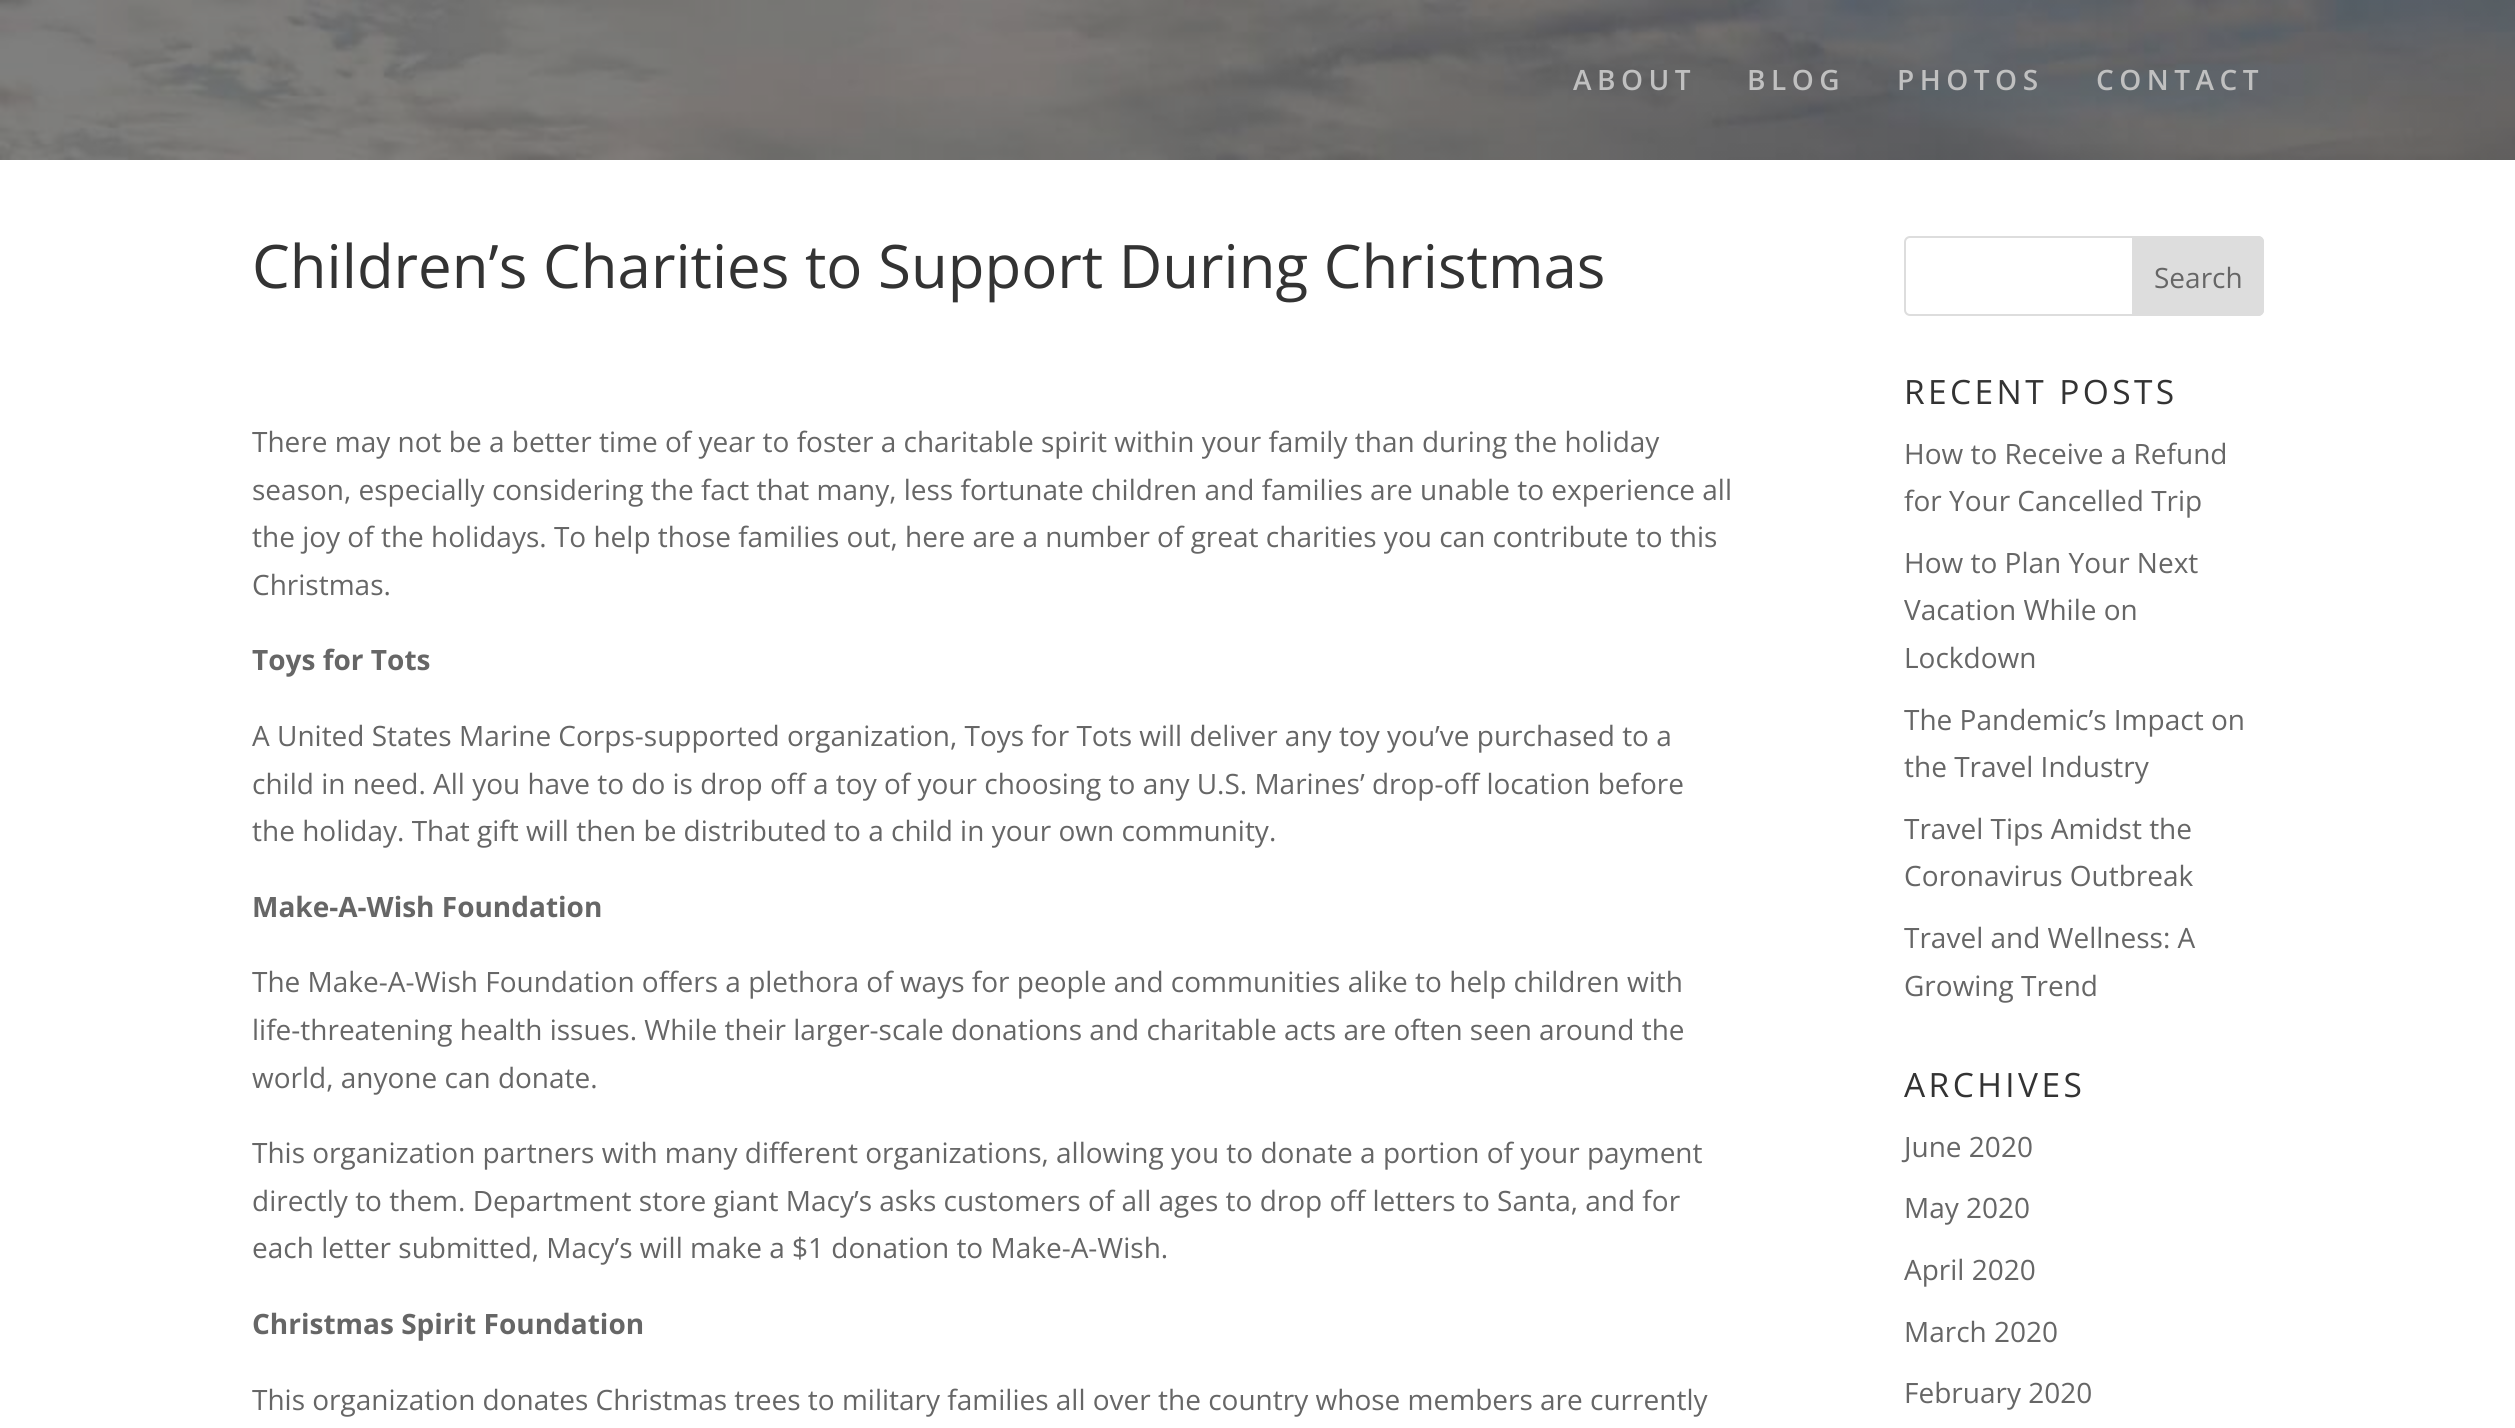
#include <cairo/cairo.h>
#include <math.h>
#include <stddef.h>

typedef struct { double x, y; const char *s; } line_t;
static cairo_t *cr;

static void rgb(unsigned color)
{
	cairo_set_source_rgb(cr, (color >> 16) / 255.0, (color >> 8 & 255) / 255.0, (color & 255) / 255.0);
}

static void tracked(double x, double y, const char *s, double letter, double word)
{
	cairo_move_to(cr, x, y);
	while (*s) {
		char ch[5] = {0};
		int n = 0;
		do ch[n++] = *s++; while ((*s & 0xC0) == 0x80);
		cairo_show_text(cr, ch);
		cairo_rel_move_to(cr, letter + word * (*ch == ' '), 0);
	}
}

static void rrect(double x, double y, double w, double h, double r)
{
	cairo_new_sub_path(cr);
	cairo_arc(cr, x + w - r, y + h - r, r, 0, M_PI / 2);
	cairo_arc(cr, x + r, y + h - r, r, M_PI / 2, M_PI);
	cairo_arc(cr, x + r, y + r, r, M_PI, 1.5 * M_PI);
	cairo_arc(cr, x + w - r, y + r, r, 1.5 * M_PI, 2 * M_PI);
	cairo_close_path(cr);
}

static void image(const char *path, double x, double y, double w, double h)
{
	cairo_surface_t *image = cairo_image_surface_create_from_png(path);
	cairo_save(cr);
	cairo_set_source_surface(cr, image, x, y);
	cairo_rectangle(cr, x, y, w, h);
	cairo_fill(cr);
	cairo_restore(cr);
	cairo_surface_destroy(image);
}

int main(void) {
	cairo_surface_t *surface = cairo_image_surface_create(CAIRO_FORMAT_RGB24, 2515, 1428);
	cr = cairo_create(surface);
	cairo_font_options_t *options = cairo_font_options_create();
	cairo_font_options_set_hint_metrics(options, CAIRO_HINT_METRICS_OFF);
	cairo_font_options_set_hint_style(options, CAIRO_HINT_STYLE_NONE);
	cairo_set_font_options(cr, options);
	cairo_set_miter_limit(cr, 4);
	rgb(0xffffff);
	cairo_paint(cr);
	image("img/1.png", 0, 0, 2515, 160);
	rrect(1905, 237, 358, 78, 5);
	rgb(0xdddddd);
	cairo_stroke(cr);
	cairo_new_path(cr);
	cairo_move_to(cr, 2133, 237);
	cairo_line_to(cr, 2258, 237);
	cairo_curve_to(cr, 2261, 237, 2263, 239, 2263, 242);
	cairo_line_to(cr, 2263, 310);
	cairo_curve_to(cr, 2263, 313, 2261, 315, 2258, 315);
	cairo_line_to(cr, 2133, 315);
	cairo_close_path(cr);
	cairo_fill_preserve(cr);
	cairo_stroke(cr);
	cairo_select_font_face(cr, "Open Sans SemiBold", CAIRO_FONT_SLANT_NORMAL, CAIRO_FONT_WEIGHT_NORMAL);
	cairo_set_font_size(cr, 28);
	rgb(0xc0c0c0);
	{
		static const line_t items[] = {
			{1573, 90, "ABOUT"},
			{1747, 90, "BLOG"},
			{1897, 90, "PHOTOS"},
			{2096, 90, "CONTACT"},
		};
		for (size_t i = 0; i < sizeof items / sizeof *items; i++) {
			tracked(items[i].x, items[i].y, items[i].s, 5.5, 0);
		}
	}
	cairo_select_font_face(cr, "Open Sans", CAIRO_FONT_SLANT_NORMAL, CAIRO_FONT_WEIGHT_NORMAL);
	cairo_set_font_size(cr, 60);
	rgb(0x333333);
	cairo_move_to(cr, 252, 288);
	cairo_show_text(cr, "Children’s Charities to Support During Christmas");
	cairo_set_font_size(cr, 28);
	rgb(0x666666);
	{
		static const line_t items[] = {
			{252, 452, "There may not be a better time of year to foster a charitable spirit within your family than during the holiday"},
			{252, 500, "season, especially considering the fact that many, less fortunate children and families are unable to experience all"},
			{252, 547, "the joy of the holidays. To help those families out, here are a number of great charities you can contribute to this"},
			{252, 595, "Christmas."},
		};
		for (size_t i = 0; i < sizeof items / sizeof *items; i++) {
			cairo_move_to(cr, items[i].x, items[i].y);
			cairo_show_text(cr, items[i].s);
		}
	}
	cairo_select_font_face(cr, "Open Sans", CAIRO_FONT_SLANT_NORMAL, CAIRO_FONT_WEIGHT_BOLD);
	cairo_move_to(cr, 252, 670);
	cairo_show_text(cr, "Toys for Tots");
	cairo_select_font_face(cr, "Open Sans", CAIRO_FONT_SLANT_NORMAL, CAIRO_FONT_WEIGHT_NORMAL);
	{
		static const line_t items[] = {
			{252, 746, "A United States Marine Corps-supported organization, Toys for Tots will deliver any toy you’ve purchased to a"},
			{252, 794, "child in need. All you have to do is drop off a toy of your choosing to any U.S. Marines’ drop-off location before"},
			{252, 841, "the holiday. That gift will then be distributed to a child in your own community."},
		};
		for (size_t i = 0; i < sizeof items / sizeof *items; i++) {
			cairo_move_to(cr, items[i].x, items[i].y);
			cairo_show_text(cr, items[i].s);
		}
	}
	cairo_select_font_face(cr, "Open Sans", CAIRO_FONT_SLANT_NORMAL, CAIRO_FONT_WEIGHT_BOLD);
	cairo_move_to(cr, 252, 917);
	cairo_show_text(cr, "Make-A-Wish Foundation");
	cairo_select_font_face(cr, "Open Sans", CAIRO_FONT_SLANT_NORMAL, CAIRO_FONT_WEIGHT_NORMAL);
	{
		static const line_t items[] = {
			{252, 992, "The Make-A-Wish Foundation offers a plethora of ways for people and communities alike to help children with"},
			{252, 1040, "life-threatening health issues. While their larger-scale donations and charitable acts are often seen around the"},
			{252, 1088, "world, anyone can donate."},
			{252, 1163, "This organization partners with many different organizations, allowing you to donate a portion of your payment"},
			{252, 1211, "directly to them. Department store giant Macy’s asks customers of all ages to drop off letters to Santa, and for"},
			{252, 1258, "each letter submitted, Macy’s will make a $1 donation to Make-A-Wish."},
		};
		for (size_t i = 0; i < sizeof items / sizeof *items; i++) {
			cairo_move_to(cr, items[i].x, items[i].y);
			cairo_show_text(cr, items[i].s);
		}
	}
	cairo_select_font_face(cr, "Open Sans", CAIRO_FONT_SLANT_NORMAL, CAIRO_FONT_WEIGHT_BOLD);
	cairo_move_to(cr, 252, 1334);
	cairo_show_text(cr, "Christmas Spirit Foundation");
	cairo_select_font_face(cr, "Open Sans", CAIRO_FONT_SLANT_NORMAL, CAIRO_FONT_WEIGHT_NORMAL);
	cairo_move_to(cr, 252, 1410);
	cairo_show_text(cr, "This organization donates Christmas trees to military families all over the country whose members are currently");
	cairo_move_to(cr, 2154, 288);
	cairo_show_text(cr, "Search");
	cairo_set_font_size(cr, 33.5);
	rgb(0x333333);
	tracked(1904, 404, "RECENT POSTS", 3.4, 0);
	cairo_set_font_size(cr, 28);
	rgb(0x666666);
	{
		static const line_t items[] = {
			{1904, 464, "How to Receive a Refund"},
			{1904, 511, "for Your Cancelled Trip"},
			{1904, 573, "How to Plan Your Next"},
			{1904, 620, "Vacation While on"},
			{1904, 668, "Lockdown"},
			{1904, 730, "The Pandemic’s Impact on"},
			{1904, 777, "the Travel Industry"},
			{1904, 839, "Travel Tips Amidst the"},
			{1904, 886, "Coronavirus Outbreak"},
			{1904, 948, "Travel and Wellness: A"},
			{1904, 996, "Growing Trend"},
		};
		for (size_t i = 0; i < sizeof items / sizeof *items; i++) {
			cairo_move_to(cr, items[i].x, items[i].y);
			cairo_show_text(cr, items[i].s);
		}
	}
	cairo_set_font_size(cr, 33.5);
	rgb(0x333333);
	tracked(1904, 1097, "ARCHIVES", 3.4, 0);
	cairo_set_font_size(cr, 28);
	rgb(0x666666);
	{
		static const line_t items[] = {
			{1904, 1157, "June 2020"},
			{1904, 1218, "May 2020"},
			{1904, 1280, "April 2020"},
			{1904, 1342, "March 2020"},
			{1904, 1403, "February 2020"},
		};
		for (size_t i = 0; i < sizeof items / sizeof *items; i++) {
			cairo_move_to(cr, items[i].x, items[i].y);
			cairo_show_text(cr, items[i].s);
		}
	}
	cairo_surface_write_to_png(surface, "page.png");
	cairo_font_options_destroy(options);
	cairo_destroy(cr);
	cairo_surface_destroy(surface);
	return 0;
}
